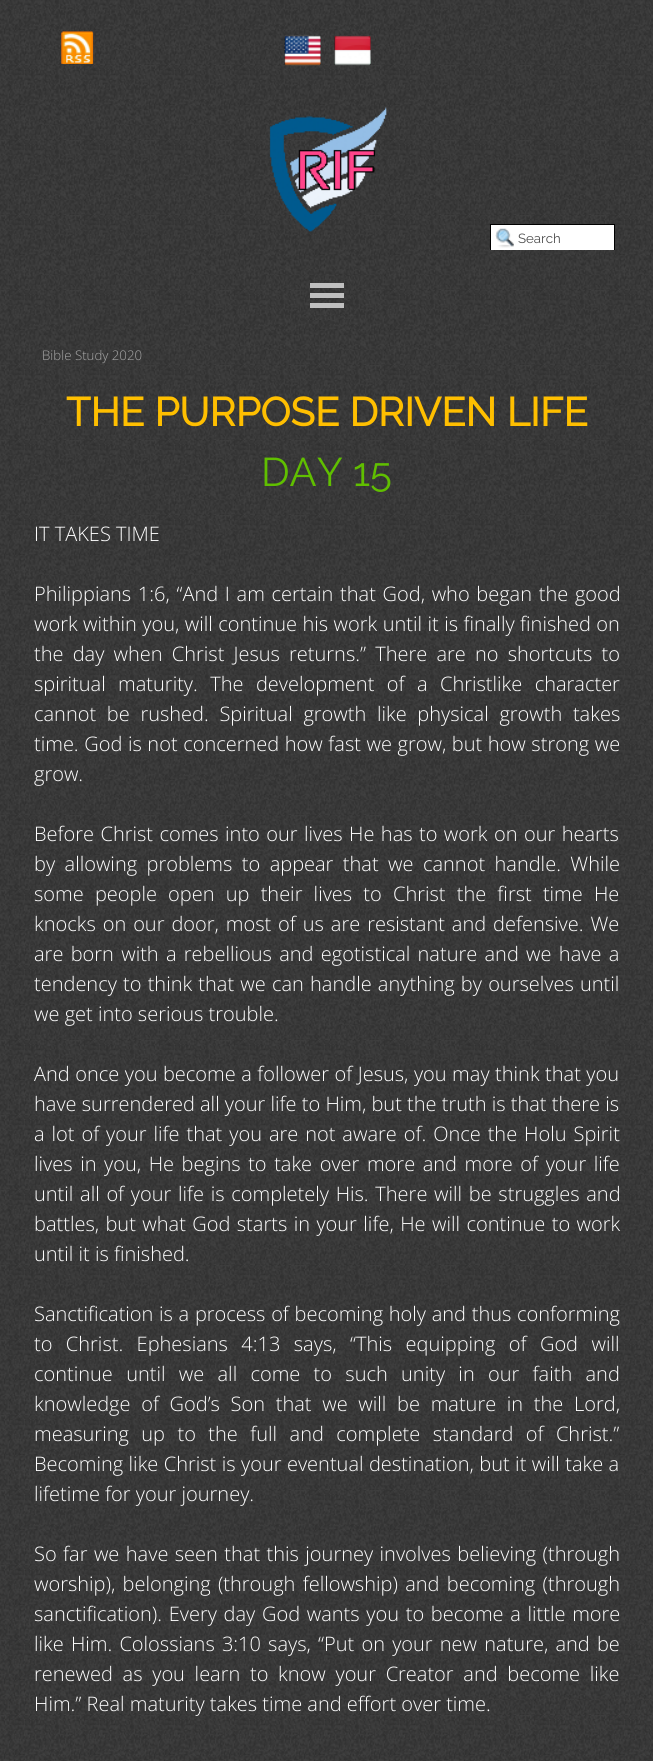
#include <cairo/cairo.h>
#include <math.h>
#include <stddef.h>

typedef struct { double x, y, w, h; unsigned color; } box_t;
static cairo_t *cr;

static void rgb(unsigned color)
{
	cairo_set_source_rgb(cr, (color >> 16) / 255.0, (color >> 8 & 255) / 255.0, (color & 255) / 255.0);
}

static void tracked(double x, double y, const char *s, double letter, double word)
{
	cairo_move_to(cr, x, y);
	while (*s) {
		char ch[5] = {0};
		int n = 0;
		do ch[n++] = *s++; while ((*s & 0xC0) == 0x80);
		cairo_show_text(cr, ch);
		cairo_rel_move_to(cr, letter + word * (*ch == ' '), 0);
	}
}

static void image(const char *path, double x, double y, double w, double h)
{
	cairo_surface_t *image = cairo_image_surface_create_from_png(path);
	cairo_save(cr);
	cairo_set_source_surface(cr, image, x, y);
	cairo_rectangle(cr, x, y, w, h);
	cairo_fill(cr);
	cairo_restore(cr);
	cairo_surface_destroy(image);
}

int main(void) {
	cairo_surface_t *surface = cairo_image_surface_create(CAIRO_FORMAT_RGB24, 653, 1761);
	cr = cairo_create(surface);
	cairo_font_options_t *options = cairo_font_options_create();
	cairo_font_options_set_hint_metrics(options, CAIRO_HINT_METRICS_OFF);
	cairo_font_options_set_hint_style(options, CAIRO_HINT_STYLE_NONE);
	cairo_set_font_options(cr, options);
	cairo_set_miter_limit(cr, 4);
	rgb(0xffffff);
	cairo_paint(cr);
	image("img/1.png", 0, 0, 653, 1761);
	image("img/2.png", 61, 31, 33, 33);
	image("img/3.png", 284, 35, 37, 31);
	image("img/4.png", 334, 35, 37, 31);
	image("img/5.png", 269, 107, 118, 125);
	rgb(0xffffff);
	cairo_rectangle(cr, 491, 225, 123, 25);
	cairo_fill(cr);
	image("img/6.png", 495, 228, 19, 20);
	cairo_save(cr);
	cairo_rectangle(cr, 490, 223, 125, 27);
	cairo_clip(cr);
	cairo_rectangle(cr, 490.5, 224.5, 124, 26);
	rgb(0x000000);
	cairo_set_line_width(cr, 1);
	cairo_stroke(cr);
	cairo_restore(cr);
	image("img/7.png", 301, 269, 52, 51);
	{
		static const box_t items[] = {
			{310, 283, 34, 5, 0xc0c0c0},
			{310, 293, 34, 5, 0xc0c0c0},
			{310, 303, 34, 5, 0xc0c0c0},
		};
		for (size_t i = 0; i < sizeof items / sizeof *items; i++) {
			rgb(items[i].color);
			cairo_rectangle(cr, items[i].x, items[i].y, items[i].w, items[i].h);
			cairo_fill(cr);
		}
	}
	cairo_select_font_face(cr, "Raleway Thin", CAIRO_FONT_SLANT_NORMAL, CAIRO_FONT_WEIGHT_NORMAL);
	cairo_set_font_size(cr, 13.25);
	rgb(0x4d4d4d);
	cairo_move_to(cr, 518, 243);
	cairo_show_text(cr, "Search");
	cairo_select_font_face(cr, "Open Sans Light", CAIRO_FONT_SLANT_NORMAL, CAIRO_FONT_WEIGHT_NORMAL);
	rgb(0xa9a9a9);
	cairo_move_to(cr, 42, 360);
	cairo_show_text(cr, "Bible Study 2020");
	cairo_select_font_face(cr, "Raleway", CAIRO_FONT_SLANT_NORMAL, CAIRO_FONT_WEIGHT_BOLD);
	cairo_set_font_size(cr, 40);
	rgb(0xffbf00);
	cairo_move_to(cr, 66, 426);
	cairo_show_text(cr, "THE PURPOSE DRIVEN LIFE");
	cairo_select_font_face(cr, "Raleway Thin", CAIRO_FONT_SLANT_NORMAL, CAIRO_FONT_WEIGHT_NORMAL);
	rgb(0x60bf00);
	cairo_move_to(cr, 261, 486);
	cairo_show_text(cr, "DAY 15");
	cairo_select_font_face(cr, "Open Sans Light", CAIRO_FONT_SLANT_NORMAL, CAIRO_FONT_WEIGHT_NORMAL);
	cairo_set_font_size(cr, 20);
	rgb(0xffffff);
	cairo_move_to(cr, 34, 541);
	cairo_show_text(cr, "IT TAKES TIME");
	tracked(34, 601, "Philippians 1:6, “And I am certain that God, who began the good", 0, 1.5);
	tracked(34, 631, "work within you, will continue his work until it is finally finished on", 0, 0.25);
	tracked(34, 661, "the day when Christ Jesus returns.” There are no shortcuts to", 0, 4);
	tracked(34, 691, "spiritual maturity. The development of a Christlike character", 0, 7.25);
	tracked(34, 721, "cannot be rushed. Spiritual growth like physical growth takes", 0, 5.5);
	tracked(34, 751, "time. God is not concerned how fast we grow, but how strong we", 0, 0.4);
	cairo_move_to(cr, 34, 781);
	cairo_show_text(cr, "grow.");
	tracked(34, 841, "Before Christ comes into our lives He has to work on our hearts", 0, 1.25);
	tracked(34, 871, "by allowing problems to appear that we cannot handle. While", 0, 4.25);
	tracked(34, 901, "some people open up their lives to Christ the first time He", 0, 6);
	tracked(34, 931, "knocks on our door, most of us are resistant and defensive. We", 0, 1.75);
	tracked(34, 961, "are born with a rebellious and egotistical nature and we have a", 0, 2.1);
	tracked(34, 991, "tendency to think that we can handle anything by ourselves until", 0, 1);
	cairo_move_to(cr, 34, 1021);
	cairo_show_text(cr, "we get into serious trouble.");
	tracked(34, 1081, "And once you become a follower of Jesus, you may think that you", 0, 0.3);
	cairo_move_to(cr, 34, 1111);
	cairo_show_text(cr, "have surrendered all your life to Him, but the truth is that there is");
	tracked(34, 1141, "a lot of your life that you are not aware of. Once the Holu Spirit", 0, 1.75);
	tracked(34, 1171, "lives in you, He begins to take over more and more of your life", 0, 2.4);
	tracked(34, 1201, "until all of your life is completely His. There will be struggles and", 0, 1.5);
	tracked(34, 1231, "battles, but what God starts in your life, He will continue to work", 0, 1.25);
	cairo_move_to(cr, 34, 1261);
	cairo_show_text(cr, "until it is finished.");
	tracked(34, 1321, "Sanctification is a process of becoming holy and thus conforming", 0, 0.5);
	tracked(34, 1351, "to Christ. Ephesians 4:13 says, “This equipping of God will", 0, 8.25);
	tracked(34, 1381, "continue until we all come to such unity in our faith and", 0, 8.1);
	tracked(34, 1411, "knowledge of God’s Son that we will be mature in the Lord,", 0, 5.5);
	tracked(34, 1441, "measuring up to the full and complete standard of Christ.”", 0, 7.25);
	tracked(34, 1471, "Becoming like Christ is your eventual destination, but it will take a", 0, 0.25);
	cairo_move_to(cr, 34, 1501);
	cairo_show_text(cr, "lifetime for your journey.");
	tracked(34, 1561, "So far we have seen that this journey involves believing (through", 0, 1.25);
	tracked(34, 1591, "worship), belonging (through fellowship) and becoming (through", 0, 2.1);
	tracked(34, 1621, "sanctification). Every day God wants you to become a little more", 0, 1.5);
	tracked(34, 1651, "like Him. Colossians 3:10 says, “Put on your new nature, and be", 0, 2);
	tracked(34, 1681, "renewed as you learn to know your Creator and become like", 0, 4.5);
	cairo_move_to(cr, 34, 1711);
	cairo_show_text(cr, "Him.” Real maturity takes time and effort over time.");
	cairo_surface_write_to_png(surface, "page.png");
	cairo_font_options_destroy(options);
	cairo_destroy(cr);
	cairo_surface_destroy(surface);
	return 0;
}
